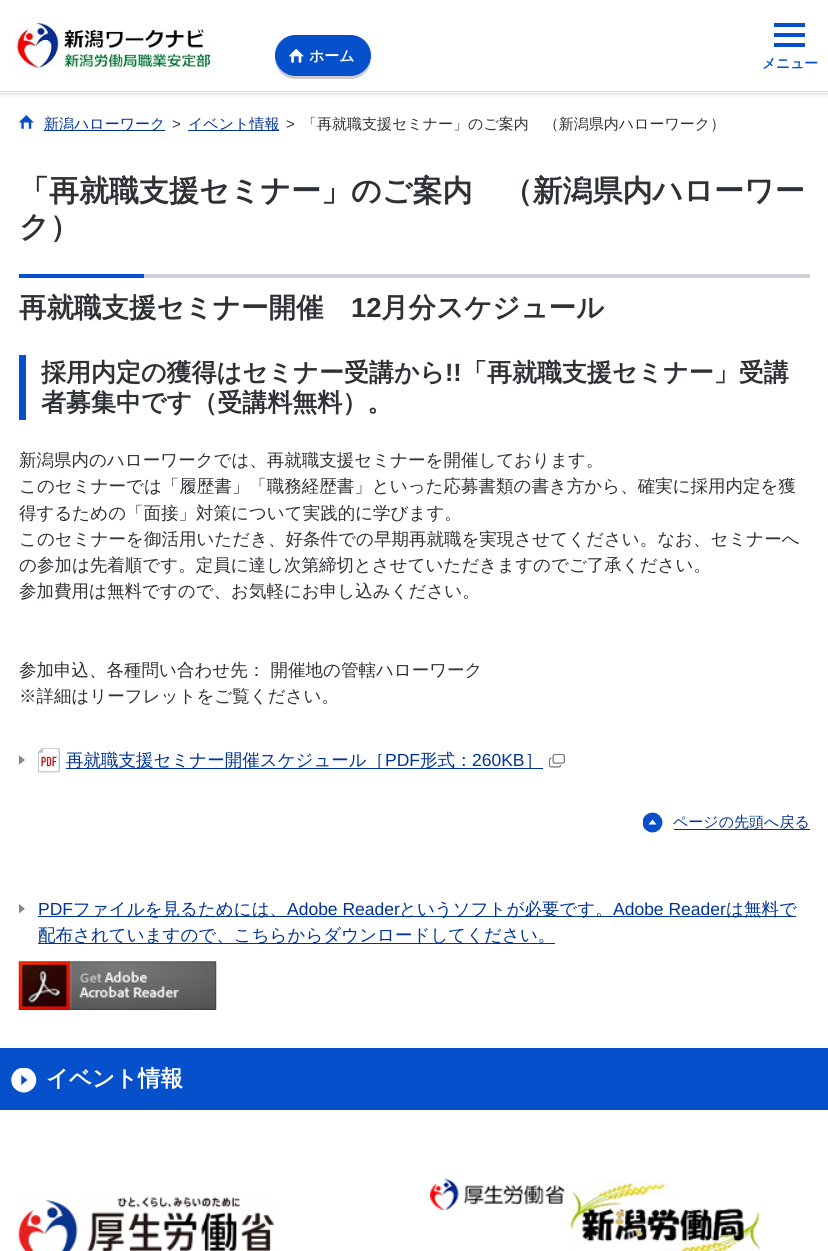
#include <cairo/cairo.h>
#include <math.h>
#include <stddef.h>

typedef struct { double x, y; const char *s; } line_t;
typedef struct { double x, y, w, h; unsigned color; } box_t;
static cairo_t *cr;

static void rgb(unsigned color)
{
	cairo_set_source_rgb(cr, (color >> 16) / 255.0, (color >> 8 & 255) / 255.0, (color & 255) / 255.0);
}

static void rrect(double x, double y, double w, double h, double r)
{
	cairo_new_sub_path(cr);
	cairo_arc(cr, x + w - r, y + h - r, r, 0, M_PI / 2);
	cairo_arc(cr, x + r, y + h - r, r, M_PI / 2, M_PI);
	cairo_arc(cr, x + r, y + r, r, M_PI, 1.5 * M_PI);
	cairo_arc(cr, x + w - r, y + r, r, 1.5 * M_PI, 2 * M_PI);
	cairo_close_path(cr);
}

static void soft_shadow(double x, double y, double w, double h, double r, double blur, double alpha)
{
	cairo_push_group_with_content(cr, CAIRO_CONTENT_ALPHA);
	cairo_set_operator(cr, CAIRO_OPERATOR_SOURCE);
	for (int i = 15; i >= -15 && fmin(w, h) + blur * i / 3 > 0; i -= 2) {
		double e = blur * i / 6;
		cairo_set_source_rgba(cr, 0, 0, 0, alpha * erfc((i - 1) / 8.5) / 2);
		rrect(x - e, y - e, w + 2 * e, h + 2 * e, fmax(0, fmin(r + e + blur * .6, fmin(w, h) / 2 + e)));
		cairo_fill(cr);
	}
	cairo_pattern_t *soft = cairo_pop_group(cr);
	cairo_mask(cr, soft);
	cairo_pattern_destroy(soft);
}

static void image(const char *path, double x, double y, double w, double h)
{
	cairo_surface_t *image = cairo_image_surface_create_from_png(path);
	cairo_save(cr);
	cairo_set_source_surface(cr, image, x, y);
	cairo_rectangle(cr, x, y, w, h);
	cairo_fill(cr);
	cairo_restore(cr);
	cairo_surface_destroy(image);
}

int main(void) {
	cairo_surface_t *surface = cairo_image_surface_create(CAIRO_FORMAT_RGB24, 828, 1251);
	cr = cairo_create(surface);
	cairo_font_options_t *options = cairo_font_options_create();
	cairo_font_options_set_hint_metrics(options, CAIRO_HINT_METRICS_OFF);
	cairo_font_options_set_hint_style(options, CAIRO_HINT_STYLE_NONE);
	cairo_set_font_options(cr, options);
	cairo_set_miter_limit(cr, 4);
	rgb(0xffffff);
	cairo_paint(cr);
	rgb(0xd3d6dd);
	soft_shadow(0, 1, 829, 93, 0, 2, 1);
	rgb(0xffffff);
	cairo_rectangle(cr, 0, 0, 828, 93);
	cairo_fill(cr);
	rgb(0xd3d6dd);
	cairo_rectangle(cr, 0, 91, 828, 1);
	cairo_fill(cr);
	image("img/1.png", 12, 16, 200, 53);
	rgb(0xcccccc);
	cairo_new_path(cr);
	cairo_move_to(cr, 275, 57);
	cairo_line_to(cr, 275, 58);
	cairo_curve_to(cr, 275, 70, 284, 79, 296, 79);
	cairo_line_to(cr, 350, 79);
	cairo_curve_to(cr, 362, 79, 371, 70, 371, 59);
	cairo_curve_to(cr, 369, 69, 361, 76, 351, 76);
	cairo_line_to(cr, 296, 76);
	cairo_curve_to(cr, 285, 76, 276, 68, 275, 57);
	cairo_close_path(cr);
	cairo_fill(cr);
	rgb(0x0650cb);
	rrect(275.5, 35.5, 95, 40, 20);
	cairo_fill_preserve(cr);
	cairo_set_line_width(cr, 1);
	cairo_stroke(cr);
	image("img/2.png", 289, 49, 15, 14);
	{
		static const box_t items[] = {
			{774, 33, 31, 4, 0x0650cb},
			{774, 23, 31, 4, 0x0650cb},
			{774, 43, 31, 4, 0x0650cb},
		};
		for (size_t i = 0; i < sizeof items / sizeof *items; i++) {
			rgb(items[i].color);
			cairo_rectangle(cr, items[i].x, items[i].y, items[i].w, items[i].h);
			cairo_fill(cr);
		}
	}
	image("img/3.png", 19, 115, 15, 14);
	{
		static const box_t items[] = {
			{44, 130, 121, 1, 0x003399},
			{188, 130, 91, 1, 0x003399},
			{144, 274, 666, 4, 0xced1d9},
			{19, 274, 125, 4, 0x0650cb},
			{19, 355, 7, 65, 0x0650cb},
		};
		for (size_t i = 0; i < sizeof items / sizeof *items; i++) {
			rgb(items[i].color);
			cairo_rectangle(cr, items[i].x, items[i].y, items[i].w, items[i].h);
			cairo_fill(cr);
		}
	}
	image("img/4.png", 19, 755, 6, 10);
	image("img/5.png", 38, 748, 22, 25);
	rgb(0x003399);
	cairo_rectangle(cr, 66, 768, 477, 1);
	cairo_fill(cr);
	image("img/6.png", 549, 754, 16, 14);
	image("img/7.png", 643, 812, 20, 21);
	cairo_rectangle(cr, 674, 829, 136, 1);
	cairo_fill(cr);
	image("img/8.png", 19, 904, 6, 10);
	cairo_rectangle(cr, 38, 916, 758, 1);
	cairo_fill(cr);
	cairo_rectangle(cr, 38, 943, 517, 1);
	cairo_fill(cr);
	image("img/9.png", 18, 961, 199, 49);
	rgb(0x0650cb);
	cairo_rectangle(cr, 0, 1048, 828, 62);
	cairo_fill(cr);
	image("img/10.png", 11, 1068, 26, 25);
	image("img/11.png", 18, 1197, 256, 54);
	image("img/12.png", 430, 1178, 330, 73);
	cairo_select_font_face(cr, "WenQuanYi Zen Hei", CAIRO_FONT_SLANT_NORMAL, CAIRO_FONT_WEIGHT_BOLD);
	cairo_set_font_size(cr, 15);
	rgb(0xffffff);
	cairo_move_to(cr, 309, 61);
	cairo_show_text(cr, "ホーム");
	cairo_set_font_size(cr, 13.75);
	rgb(0x0650cb);
	cairo_move_to(cr, 762, 68);
	cairo_show_text(cr, "メニュー");
	cairo_select_font_face(cr, "WenQuanYi Zen Hei Medium", CAIRO_FONT_SLANT_NORMAL, CAIRO_FONT_WEIGHT_NORMAL);
	cairo_set_font_size(cr, 15);
	rgb(0x003399);
	cairo_move_to(cr, 44, 129);
	cairo_show_text(cr, "新潟ハローワーク");
	cairo_select_font_face(cr, "Liberation Sans", CAIRO_FONT_SLANT_NORMAL, CAIRO_FONT_WEIGHT_NORMAL);
	rgb(0x2e3136);
	cairo_move_to(cr, 172, 129);
	cairo_show_text(cr, ">");
	cairo_select_font_face(cr, "WenQuanYi Zen Hei Medium", CAIRO_FONT_SLANT_NORMAL, CAIRO_FONT_WEIGHT_NORMAL);
	rgb(0x003399);
	cairo_move_to(cr, 188, 129);
	cairo_show_text(cr, "イベント情報");
	cairo_select_font_face(cr, "Liberation Sans", CAIRO_FONT_SLANT_NORMAL, CAIRO_FONT_WEIGHT_NORMAL);
	rgb(0x2e3136);
	cairo_move_to(cr, 286, 129);
	cairo_show_text(cr, ">");
	cairo_select_font_face(cr, "WenQuanYi Zen Hei Medium", CAIRO_FONT_SLANT_NORMAL, CAIRO_FONT_WEIGHT_NORMAL);
	cairo_move_to(cr, 302, 129);
	cairo_show_text(cr, "「再就職支援セミナー」のご案内　（新潟県内ハローワーク）");
	cairo_select_font_face(cr, "WenQuanYi Zen Hei", CAIRO_FONT_SLANT_NORMAL, CAIRO_FONT_WEIGHT_BOLD);
	cairo_set_font_size(cr, 30);
	cairo_move_to(cr, 19, 201);
	cairo_show_text(cr, "「再就職支援セミナー」のご案内　（新潟県内ハローワー");
	cairo_move_to(cr, 19, 237);
	cairo_show_text(cr, "ク）");
	cairo_set_font_size(cr, 27.5);
	cairo_move_to(cr, 19, 317);
	cairo_show_text(cr, "再就職支援セミナー開催");
	cairo_select_font_face(cr, "Liberation Sans", CAIRO_FONT_SLANT_NORMAL, CAIRO_FONT_WEIGHT_BOLD);
	cairo_move_to(cr, 351, 317);
	cairo_show_text(cr, "12");
	cairo_select_font_face(cr, "WenQuanYi Zen Hei", CAIRO_FONT_SLANT_NORMAL, CAIRO_FONT_WEIGHT_BOLD);
	cairo_move_to(cr, 381, 317);
	cairo_show_text(cr, "月分スケジュール");
	cairo_set_font_size(cr, 25);
	cairo_move_to(cr, 41, 381);
	cairo_show_text(cr, "採用内定の獲得はセミナー受講から");
	cairo_select_font_face(cr, "Liberation Sans", CAIRO_FONT_SLANT_NORMAL, CAIRO_FONT_WEIGHT_BOLD);
	cairo_move_to(cr, 445, 381);
	cairo_show_text(cr, "!!");
	cairo_select_font_face(cr, "WenQuanYi Zen Hei", CAIRO_FONT_SLANT_NORMAL, CAIRO_FONT_WEIGHT_BOLD);
	cairo_move_to(cr, 462, 381);
	cairo_show_text(cr, "「再就職支援セミナー」受講");
	cairo_move_to(cr, 41, 411);
	cairo_show_text(cr, "者募集中です（受講料無料）。");
	cairo_select_font_face(cr, "WenQuanYi Zen Hei Medium", CAIRO_FONT_SLANT_NORMAL, CAIRO_FONT_WEIGHT_NORMAL);
	cairo_set_font_size(cr, 17.5);
	{
		static const line_t items[] = {
			{19, 466, "新潟県内のハローワークでは、再就職支援セミナーを開催しております。"},
			{19, 492, "このセミナーでは「履歴書」「職務経歴書」といった応募書類の書き方から、確実に採用内定を獲"},
			{19, 519, "得するための「面接」対策について実践的に学びます。"},
			{19, 545, "このセミナーを御活用いただき、好条件での早期再就職を実現させてください。なお、セミナーへ"},
			{19, 571, "の参加は先着順です。定員に達し次第締切とさせていただきますのでご了承ください。"},
			{19, 597, "参加費用は無料ですので、お気軽にお申し込みください。"},
			{19, 676, "参加申込、各種問い合わせ先： 開催地の管轄ハローワーク"},
			{19, 702, "※詳細はリーフレットをご覧ください。"},
		};
		for (size_t i = 0; i < sizeof items / sizeof *items; i++) {
			cairo_move_to(cr, items[i].x, items[i].y);
			cairo_show_text(cr, items[i].s);
		}
	}
	rgb(0x003399);
	cairo_move_to(cr, 66, 766);
	cairo_show_text(cr, "再就職支援セミナー開催スケジュール［");
	cairo_select_font_face(cr, "Liberation Sans", CAIRO_FONT_SLANT_NORMAL, CAIRO_FONT_WEIGHT_NORMAL);
	cairo_move_to(cr, 385, 766);
	cairo_show_text(cr, "PDF");
	cairo_select_font_face(cr, "WenQuanYi Zen Hei Medium", CAIRO_FONT_SLANT_NORMAL, CAIRO_FONT_WEIGHT_NORMAL);
	cairo_move_to(cr, 420, 766);
	cairo_show_text(cr, "形式：");
	cairo_select_font_face(cr, "Liberation Sans", CAIRO_FONT_SLANT_NORMAL, CAIRO_FONT_WEIGHT_NORMAL);
	cairo_move_to(cr, 472, 766);
	cairo_show_text(cr, "260KB");
	cairo_select_font_face(cr, "WenQuanYi Zen Hei Medium", CAIRO_FONT_SLANT_NORMAL, CAIRO_FONT_WEIGHT_NORMAL);
	cairo_move_to(cr, 525, 766);
	cairo_show_text(cr, "］");
	cairo_set_font_size(cr, 15);
	cairo_move_to(cr, 673, 827);
	cairo_show_text(cr, "ページの先頭へ戻る");
	cairo_select_font_face(cr, "Liberation Sans", CAIRO_FONT_SLANT_NORMAL, CAIRO_FONT_WEIGHT_NORMAL);
	cairo_set_font_size(cr, 17.5);
	cairo_move_to(cr, 38, 915);
	cairo_show_text(cr, "PDF");
	cairo_select_font_face(cr, "WenQuanYi Zen Hei Medium", CAIRO_FONT_SLANT_NORMAL, CAIRO_FONT_WEIGHT_NORMAL);
	cairo_move_to(cr, 73, 915);
	cairo_show_text(cr, "ファイルを見るためには、");
	cairo_select_font_face(cr, "Liberation Sans", CAIRO_FONT_SLANT_NORMAL, CAIRO_FONT_WEIGHT_NORMAL);
	cairo_move_to(cr, 287, 915);
	cairo_show_text(cr, "Adobe Reader");
	cairo_select_font_face(cr, "WenQuanYi Zen Hei Medium", CAIRO_FONT_SLANT_NORMAL, CAIRO_FONT_WEIGHT_NORMAL);
	cairo_move_to(cr, 399, 915);
	cairo_show_text(cr, "というソフトが必要です。");
	cairo_select_font_face(cr, "Liberation Sans", CAIRO_FONT_SLANT_NORMAL, CAIRO_FONT_WEIGHT_NORMAL);
	cairo_move_to(cr, 613, 915);
	cairo_show_text(cr, "Adobe Reader");
	cairo_select_font_face(cr, "WenQuanYi Zen Hei Medium", CAIRO_FONT_SLANT_NORMAL, CAIRO_FONT_WEIGHT_NORMAL);
	cairo_move_to(cr, 726, 915);
	cairo_show_text(cr, "は無料で");
	cairo_move_to(cr, 38, 941);
	cairo_show_text(cr, "配布されていますので、こちらからダウンロードしてください。");
	cairo_select_font_face(cr, "WenQuanYi Zen Hei", CAIRO_FONT_SLANT_NORMAL, CAIRO_FONT_WEIGHT_BOLD);
	cairo_set_font_size(cr, 22.5);
	rgb(0xffffff);
	cairo_move_to(cr, 46, 1086);
	cairo_show_text(cr, "イベント情報");
	cairo_surface_write_to_png(surface, "page.png");
	cairo_font_options_destroy(options);
	cairo_destroy(cr);
	cairo_surface_destroy(surface);
	return 0;
}
